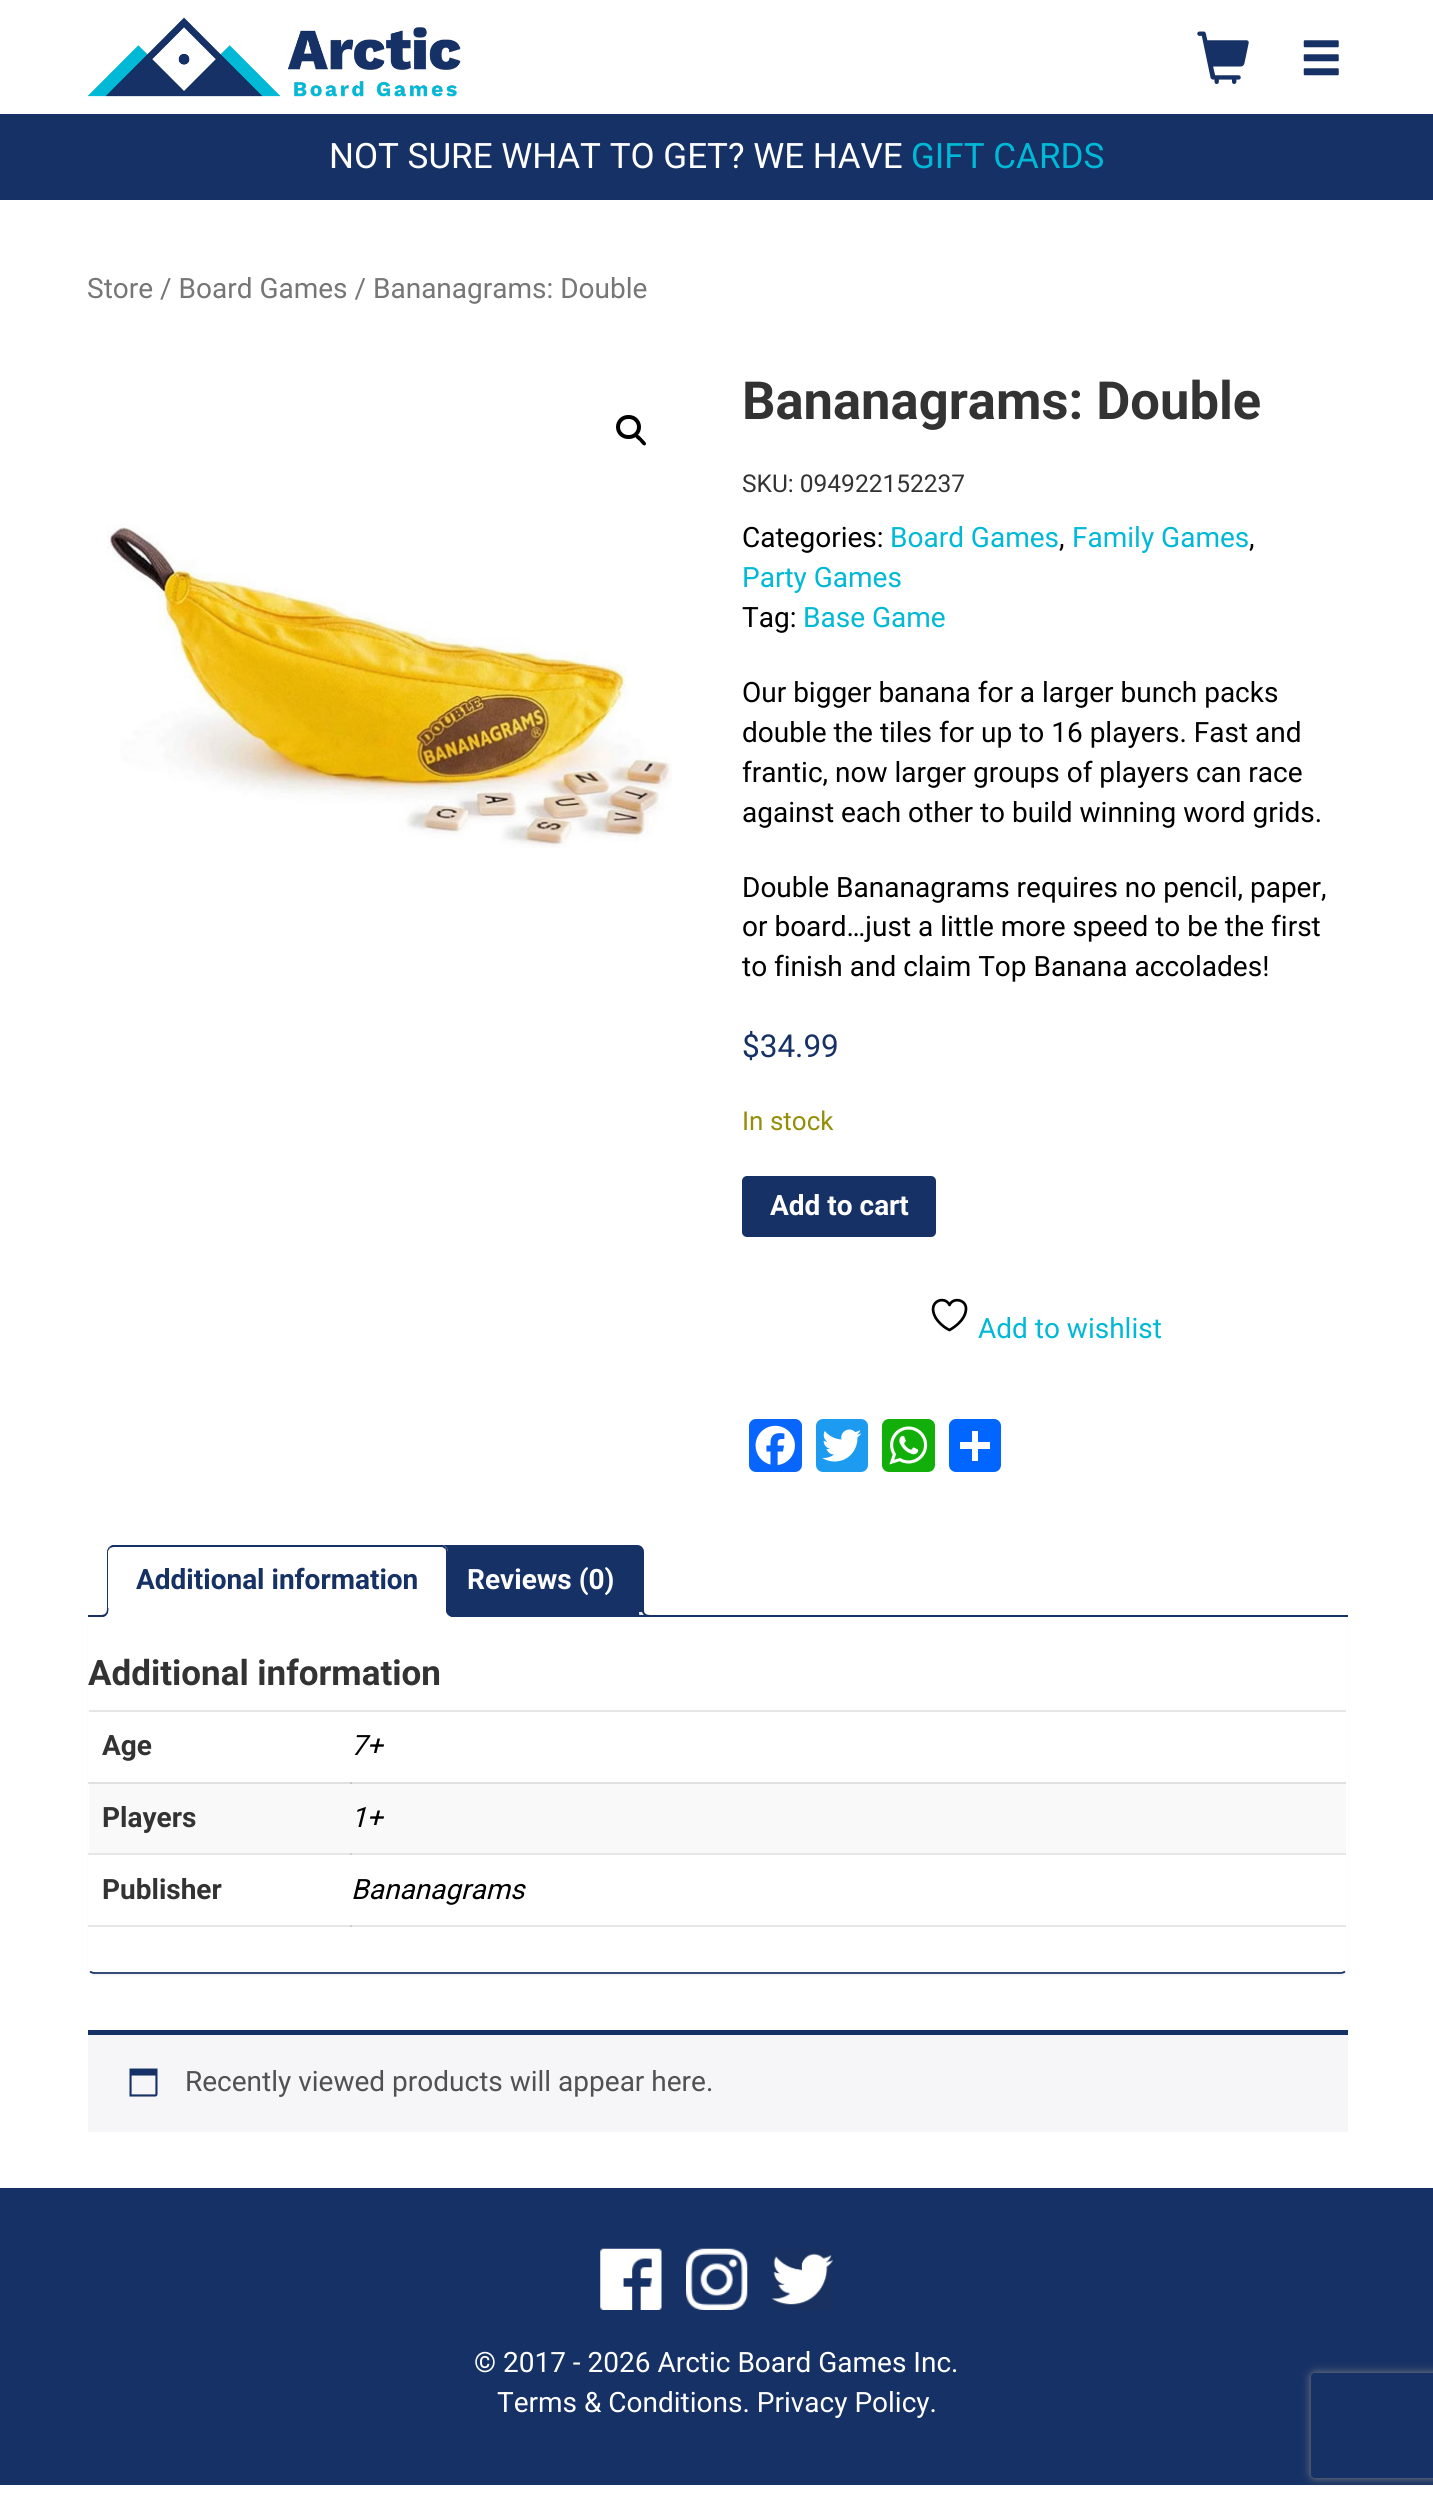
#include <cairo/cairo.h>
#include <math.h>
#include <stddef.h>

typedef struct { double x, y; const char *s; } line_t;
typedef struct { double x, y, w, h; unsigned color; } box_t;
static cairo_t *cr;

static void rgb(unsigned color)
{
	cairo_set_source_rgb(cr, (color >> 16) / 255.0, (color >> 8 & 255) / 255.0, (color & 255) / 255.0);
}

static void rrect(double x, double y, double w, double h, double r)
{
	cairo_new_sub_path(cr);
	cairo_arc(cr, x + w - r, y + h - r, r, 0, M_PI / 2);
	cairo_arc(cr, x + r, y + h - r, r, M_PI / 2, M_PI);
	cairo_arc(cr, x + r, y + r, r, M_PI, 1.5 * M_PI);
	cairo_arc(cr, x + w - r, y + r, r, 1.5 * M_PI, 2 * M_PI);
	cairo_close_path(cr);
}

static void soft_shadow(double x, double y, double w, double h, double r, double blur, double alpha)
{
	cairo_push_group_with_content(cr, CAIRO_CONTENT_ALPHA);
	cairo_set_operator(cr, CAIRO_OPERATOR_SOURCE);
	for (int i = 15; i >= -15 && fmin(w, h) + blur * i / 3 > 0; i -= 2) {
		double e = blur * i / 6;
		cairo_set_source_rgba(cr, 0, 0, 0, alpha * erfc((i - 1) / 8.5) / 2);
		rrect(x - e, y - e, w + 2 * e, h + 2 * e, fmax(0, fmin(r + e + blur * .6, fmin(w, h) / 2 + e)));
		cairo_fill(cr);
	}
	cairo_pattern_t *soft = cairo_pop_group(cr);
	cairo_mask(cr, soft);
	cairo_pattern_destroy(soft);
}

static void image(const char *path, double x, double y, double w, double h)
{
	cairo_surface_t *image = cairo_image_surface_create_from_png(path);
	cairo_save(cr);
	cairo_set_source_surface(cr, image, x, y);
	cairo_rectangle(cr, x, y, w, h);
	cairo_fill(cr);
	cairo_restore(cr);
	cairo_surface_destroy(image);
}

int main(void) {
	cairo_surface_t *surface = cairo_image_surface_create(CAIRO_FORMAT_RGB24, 1433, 2501);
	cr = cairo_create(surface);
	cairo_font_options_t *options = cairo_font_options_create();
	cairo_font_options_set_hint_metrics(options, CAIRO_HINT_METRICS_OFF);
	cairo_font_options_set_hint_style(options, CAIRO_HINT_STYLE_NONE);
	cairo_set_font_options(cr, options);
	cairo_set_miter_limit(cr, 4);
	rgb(0xffffff);
	cairo_paint(cr);
	image("img/1.png", 87, 17, 374, 80);
	image("img/2.png", 1197, 31, 52, 53);
	image("img/3.png", 1303, 40, 36, 36);
	rgb(0x163165);
	cairo_rectangle(cr, 0, 114, 1433, 86);
	cairo_fill(cr);
	rrect(618, 417, 21, 20, 10);
	rgb(0x000000);
	cairo_set_line_width(cr, 4);
	cairo_stroke(cr);
	cairo_new_path(cr);
	cairo_move_to(cr, 635.5, 435);
	cairo_curve_to(cr, 637.5, 433, 641, 437.5, 642, 438.5);
	cairo_curve_to(cr, 643, 440, 647.5, 443, 645.5, 445);
	cairo_curve_to(cr, 643.5, 447, 640.5, 442, 639.5, 441);
	cairo_curve_to(cr, 638.5, 440, 633.5, 437, 635.5, 435);
	cairo_close_path(cr);
	cairo_fill(cr);
	image("img/4.png", 106, 524, 566, 324);
	rgb(0x163165);
	rrect(742, 1176, 194, 61, 5);
	cairo_fill(cr);
	cairo_new_path(cr);
	cairo_move_to(cr, 966, 1308.5);
	cairo_curve_to(cr, 966, 1299.5, 953, 1297, 949.5, 1305);
	cairo_curve_to(cr, 945, 1295, 926.5, 1301, 935.5, 1317.5);
	cairo_curve_to(cr, 938.5, 1322.5, 944, 1327.5, 949.5, 1330);
	cairo_curve_to(cr, 949.5, 1330, 966, 1321.5, 966, 1308.5);
	cairo_close_path(cr);
	rgb(0x000000);
	cairo_set_line_width(cr, 2.7);
	cairo_set_line_cap(cr, CAIRO_LINE_CAP_ROUND);
	cairo_set_line_join(cr, CAIRO_LINE_JOIN_ROUND);
	cairo_stroke(cr);
	rgb(0x0866ff);
	rrect(749, 1419, 53, 53, 7);
	cairo_fill(cr);
	image("img/5.png", 755, 1425, 40, 40);
	rgb(0x1d9bf0);
	rrect(816, 1419, 52, 53, 7);
	cairo_fill(cr);
	image("img/6.png", 822, 1429, 40, 33);
	rgb(0x12af0a);
	rrect(882, 1419, 53, 53, 7);
	cairo_fill(cr);
	image("img/7.png", 889, 1426, 39, 39);
	rgb(0x0166ff);
	rrect(949, 1419, 52, 53, 7);
	cairo_fill(cr);
	rgb(0xffffff);
	cairo_rectangle(cr, 972, 1431, 6, 30);
	cairo_fill(cr);
	cairo_rectangle(cr, 960, 1442, 30, 7);
	cairo_fill(cr);
	rgb(0x000000);
	soft_shadow(88, 1619, 1260, 357, 7, 1, 0.05);
	rgb(0x163165);
	cairo_new_path(cr);
	cairo_move_to(cr, 445, 1546);
	cairo_line_to(cr, 637, 1546);
	cairo_curve_to(cr, 640.5, 1546, 643, 1548.5, 643, 1552);
	cairo_line_to(cr, 643, 1616);
	cairo_line_to(cr, 439, 1616);
	cairo_line_to(cr, 439, 1552);
	cairo_curve_to(cr, 439, 1548.5, 441.5, 1546, 445, 1546);
	cairo_close_path(cr);
	cairo_fill_preserve(cr);
	cairo_set_line_width(cr, 2);
	cairo_set_line_cap(cr, CAIRO_LINE_CAP_BUTT);
	cairo_set_line_join(cr, CAIRO_LINE_JOIN_MITER);
	cairo_stroke(cr);
	cairo_save(cr);
	cairo_rectangle(cr, 88, 1545, 1260, 72);
	cairo_clip(cr);
	rgb(0xe9e6ed);
	cairo_new_path(cr);
	cairo_move_to(cr, 639, 1612);
	cairo_curve_to(cr, 639, 1618.5, 641.5, 1621, 648, 1621);
	cairo_line_to(cr, 648, 1617);
	cairo_curve_to(cr, 645.5, 1616.5, 643.5, 1614.5, 642.5, 1612);
	cairo_close_path(cr);
	cairo_fill(cr);
	cairo_restore(cr);
	cairo_set_fill_rule(cr, CAIRO_FILL_RULE_EVEN_ODD);
	cairo_new_path(cr);
	cairo_move_to(cr, 642, 1608);
	cairo_line_to(cr, 651, 1608);
	cairo_line_to(cr, 651, 1617);
	cairo_curve_to(cr, 646.5, 1617, 642, 1615.5, 642, 1610);
	cairo_close_path(cr);
	cairo_move_to(cr, 644, 1608);
	cairo_line_to(cr, 651, 1608);
	cairo_line_to(cr, 651, 1615);
	cairo_curve_to(cr, 647.5, 1615, 644, 1614.5, 644, 1610);
	cairo_close_path(cr);
	cairo_fill(cr);
	cairo_rectangle(cr, 88, 1615, 1260, 2);
	cairo_fill(cr);
	rgb(0xffffff);
	cairo_new_path(cr);
	cairo_move_to(cr, 114, 1545);
	cairo_line_to(cr, 441, 1545);
	cairo_curve_to(cr, 445, 1545, 448, 1548, 448, 1552);
	cairo_line_to(cr, 448, 1617);
	cairo_line_to(cr, 107, 1617);
	cairo_line_to(cr, 107, 1552);
	cairo_curve_to(cr, 107, 1548, 110, 1545, 114, 1545);
	cairo_close_path(cr);
	cairo_fill(cr);
	rgb(0x163165);
	cairo_set_fill_rule(cr, CAIRO_FILL_RULE_WINDING);
	cairo_new_path(cr);
	cairo_move_to(cr, 114, 1547);
	cairo_curve_to(cr, 112, 1547, 111, 1548, 110, 1548);
	cairo_line_to(cr, 109, 1547);
	cairo_curve_to(cr, 110, 1546, 111, 1546, 112, 1545);
	cairo_line_to(cr, 443, 1545);
	cairo_line_to(cr, 446, 1547);
	cairo_line_to(cr, 445, 1549);
	cairo_curve_to(cr, 444, 1548, 443, 1547, 441, 1547);
	cairo_close_path(cr);
	cairo_fill(cr);
	cairo_new_path(cr);
	cairo_move_to(cr, 448, 1617);
	cairo_line_to(cr, 448, 1552);
	cairo_curve_to(cr, 448, 1550, 447, 1548, 446, 1547);
	cairo_line_to(cr, 445, 1549);
	cairo_curve_to(cr, 446, 1549, 446, 1551, 446, 1552);
	cairo_line_to(cr, 446, 1615);
	cairo_close_path(cr);
	cairo_fill(cr);
	rgb(0xffffff);
	cairo_new_path(cr);
	cairo_move_to(cr, 448, 1617);
	cairo_line_to(cr, 446, 1615);
	cairo_line_to(cr, 109, 1615);
	cairo_line_to(cr, 107, 1617);
	cairo_close_path(cr);
	cairo_fill(cr);
	rgb(0x163165);
	cairo_new_path(cr);
	cairo_move_to(cr, 107, 1617);
	cairo_line_to(cr, 107, 1552);
	cairo_curve_to(cr, 107, 1550, 108, 1548, 109, 1547);
	cairo_line_to(cr, 110, 1548);
	cairo_line_to(cr, 108, 1551);
	cairo_line_to(cr, 108, 1615);
	cairo_line_to(cr, 109, 1615);
	cairo_close_path(cr);
	cairo_fill(cr);
	cairo_save(cr);
	cairo_rectangle(cr, 88, 1545, 1260, 72);
	cairo_clip(cr);
	rgb(0xffffff);
	cairo_new_path(cr);
	cairo_move_to(cr, 103, 1617);
	cairo_line_to(cr, 103, 1621);
	cairo_curve_to(cr, 109.5, 1621, 112, 1618.5, 112, 1612);
	cairo_line_to(cr, 108, 1612);
	cairo_curve_to(cr, 107.5, 1614.5, 105.5, 1616.5, 103, 1617);
	cairo_close_path(cr);
	cairo_fill(cr);
	cairo_restore(cr);
	cairo_set_fill_rule(cr, CAIRO_FILL_RULE_EVEN_ODD);
	cairo_new_path(cr);
	cairo_move_to(cr, 100, 1608);
	cairo_line_to(cr, 108.5, 1608);
	cairo_curve_to(cr, 108.5, 1614.5, 106, 1617, 100, 1617);
	cairo_close_path(cr);
	cairo_move_to(cr, 100, 1608);
	cairo_line_to(cr, 107, 1608);
	cairo_curve_to(cr, 107, 1613.5, 105, 1615, 100, 1615);
	cairo_close_path(cr);
	cairo_fill(cr);
	cairo_save(cr);
	cairo_set_fill_rule(cr, CAIRO_FILL_RULE_WINDING);
	cairo_rectangle(cr, 88, 1545, 1260, 72);
	cairo_clip(cr);
	rgb(0xffffff);
	cairo_new_path(cr);
	cairo_move_to(cr, 443, 1612);
	cairo_curve_to(cr, 443, 1618.5, 445.5, 1621, 452, 1621);
	cairo_line_to(cr, 452, 1617);
	cairo_curve_to(cr, 449.5, 1616.5, 447.5, 1614.5, 446.5, 1612);
	cairo_close_path(cr);
	cairo_fill(cr);
	cairo_restore(cr);
	cairo_new_path(cr);
	cairo_move_to(cr, 446, 1608);
	cairo_line_to(cr, 455, 1608);
	cairo_line_to(cr, 455, 1617);
	cairo_curve_to(cr, 450.5, 1617, 446, 1615.5, 446, 1610);
	cairo_close_path(cr);
	cairo_move_to(cr, 448, 1608);
	cairo_line_to(cr, 455, 1608);
	cairo_line_to(cr, 455, 1615);
	cairo_curve_to(cr, 451.5, 1615, 448, 1614.5, 448, 1610);
	cairo_close_path(cr);
	cairo_fill(cr);
	rgb(0xffffff);
	rrect(88, 1617, 1260, 357, 7);
	cairo_fill(cr);
	{
		static const box_t items[] = {
			{88, 1782, 1, 2, 0xe6e6e6},
			{88, 1853, 1258, 2, 0xe6e6e6},
			{88, 1925, 1258, 2, 0xe6e6e6},
		};
		for (size_t i = 0; i < sizeof items / sizeof *items; i++) {
			rgb(items[i].color);
			cairo_rectangle(cr, items[i].x, items[i].y, items[i].w, items[i].h);
			cairo_fill(cr);
		}
	}
	cairo_new_path(cr);
	cairo_move_to(cr, 1345, 1971.5);
	cairo_curve_to(cr, 1343.5, 1972.5, 1342, 1973, 1340.5, 1973);
	cairo_line_to(cr, 94.5, 1973);
	cairo_curve_to(cr, 93, 1973, 91.5, 1972.5, 90, 1971.5);
	rgb(0x163165);
	cairo_set_line_width(cr, 1.8);
	cairo_stroke(cr);
	{
		static const box_t items[] = {
			{89, 1710, 1257, 2, 0xe6e6e6},
			{89, 1782, 1257, 2, 0xe0e0e0},
			{350, 1782, 2, 2, 0xcacaca},
			{89, 1784, 1257, 69, 0xf9f9f9},
			{350, 1853, 2, 2, 0xcfcfcf},
			{350, 1925, 2, 2, 0xcfcfcf},
			{88, 2035, 1260, 97, 0xf6f5f8},
			{88, 2030, 1260, 5, 0x163165},
		};
		for (size_t i = 0; i < sizeof items / sizeof *items; i++) {
			rgb(items[i].color);
			cairo_rectangle(cr, items[i].x, items[i].y, items[i].w, items[i].h);
			cairo_fill(cr);
		}
	}
	image("img/8.png", 129, 2068, 29, 29);
	cairo_rectangle(cr, 0, 2188, 1433, 297);
	cairo_fill(cr);
	image("img/9.png", 600, 2248, 62, 62);
	image("img/10.png", 686, 2248, 62, 62);
	image("img/11.png", 771, 2249, 62, 61);
	cairo_save(cr);
	cairo_new_path(cr);
	cairo_move_to(cr, 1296, 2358);
	cairo_line_to(cr, 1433, 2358);
	cairo_line_to(cr, 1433, 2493);
	cairo_line_to(cr, 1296, 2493);
	cairo_close_path(cr);
	cairo_move_to(cr, 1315, 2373);
	cairo_line_to(cr, 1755, 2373);
	cairo_curve_to(cr, 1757, 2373, 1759, 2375, 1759, 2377);
	cairo_line_to(cr, 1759, 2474);
	cairo_curve_to(cr, 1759, 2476, 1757, 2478, 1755, 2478);
	cairo_line_to(cr, 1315, 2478);
	cairo_curve_to(cr, 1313, 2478, 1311, 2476, 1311, 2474);
	cairo_line_to(cr, 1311, 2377);
	cairo_curve_to(cr, 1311, 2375, 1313, 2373, 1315, 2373);
	cairo_close_path(cr);
	cairo_clip(cr);
	rgb(0x808080);
	soft_shadow(1311, 2373, 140, 105, 4, 4.5, 1);
	cairo_restore(cr);
	cairo_select_font_face(cr, "Roboto", CAIRO_FONT_SLANT_NORMAL, CAIRO_FONT_WEIGHT_NORMAL);
	cairo_set_font_size(cr, 35);
	rgb(0xffffff);
	cairo_move_to(cr, 329, 168);
	cairo_show_text(cr, "NOT SURE WHAT TO GET? WE HAVE");
	rgb(0x00b9d6);
	cairo_move_to(cr, 911, 168);
	cairo_show_text(cr, "GIFT CARDS");
	cairo_set_font_size(cr, 28);
	rgb(0x767676);
	cairo_move_to(cr, 87, 298);
	cairo_show_text(cr, "Store / Board Games / Bananagrams: Double");
	cairo_select_font_face(cr, "Roboto", CAIRO_FONT_SLANT_NORMAL, CAIRO_FONT_WEIGHT_BOLD);
	cairo_set_font_size(cr, 52.5);
	rgb(0x333333);
	cairo_move_to(cr, 742, 419);
	cairo_show_text(cr, "Bananagrams: Double");
	cairo_select_font_face(cr, "Roboto", CAIRO_FONT_SLANT_NORMAL, CAIRO_FONT_WEIGHT_NORMAL);
	cairo_set_font_size(cr, 24.5);
	cairo_move_to(cr, 742, 492);
	cairo_show_text(cr, "SKU: 094922152237");
	cairo_set_font_size(cr, 28);
	rgb(0x000000);
	cairo_move_to(cr, 742, 547);
	cairo_show_text(cr, "Categories:");
	rgb(0x00b9d6);
	cairo_move_to(cr, 890, 547);
	cairo_show_text(cr, "Board Games");
	rgb(0x000000);
	cairo_move_to(cr, 1059, 547);
	cairo_show_text(cr, ",");
	rgb(0x00b9d6);
	cairo_move_to(cr, 1072, 547);
	cairo_show_text(cr, "Family Games");
	rgb(0x000000);
	cairo_move_to(cr, 1249, 547);
	cairo_show_text(cr, ",");
	rgb(0x00b9d6);
	cairo_move_to(cr, 742, 587);
	cairo_show_text(cr, "Party Games");
	rgb(0x000000);
	cairo_move_to(cr, 742, 627);
	cairo_show_text(cr, "Tag:");
	rgb(0x00b9d6);
	cairo_move_to(cr, 803, 627);
	cairo_show_text(cr, "Base Game");
	rgb(0x000000);
	{
		static const line_t items[] = {
			{742, 702, "Our bigger banana for a larger bunch packs"},
			{742, 742, "double the tiles for up to 16 players. Fast and"},
			{742, 782, "frantic, now larger groups of players can race"},
			{742, 822, "against each other to build winning word grids."},
			{742, 897, "Double Bananagrams requires no pencil, paper,"},
			{742, 936, "or board…just a little more speed to be the first"},
			{742, 976, "to finish and claim Top Banana accolades!"},
		};
		for (size_t i = 0; i < sizeof items / sizeof *items; i++) {
			cairo_move_to(cr, items[i].x, items[i].y);
			cairo_show_text(cr, items[i].s);
		}
	}
	cairo_set_font_size(cr, 31.5);
	rgb(0x163165);
	cairo_move_to(cr, 742, 1057);
	cairo_show_text(cr, "$34.99");
	cairo_set_font_size(cr, 26);
	rgb(0x958e09);
	cairo_move_to(cr, 742, 1130);
	cairo_show_text(cr, "In stock");
	cairo_select_font_face(cr, "Roboto", CAIRO_FONT_SLANT_NORMAL, CAIRO_FONT_WEIGHT_BOLD);
	cairo_set_font_size(cr, 28);
	rgb(0xffffff);
	cairo_move_to(cr, 770, 1215);
	cairo_show_text(cr, "Add to cart");
	cairo_select_font_face(cr, "Roboto", CAIRO_FONT_SLANT_NORMAL, CAIRO_FONT_WEIGHT_NORMAL);
	rgb(0x00b9d6);
	cairo_move_to(cr, 978, 1338);
	cairo_show_text(cr, "Add to wishlist");
	cairo_select_font_face(cr, "Roboto", CAIRO_FONT_SLANT_NORMAL, CAIRO_FONT_WEIGHT_BOLD);
	rgb(0x163165);
	cairo_move_to(cr, 136, 1589);
	cairo_show_text(cr, "Additional information");
	rgb(0xffffff);
	cairo_move_to(cr, 467, 1589);
	cairo_show_text(cr, "Reviews (0)");
	cairo_set_font_size(cr, 35);
	rgb(0x333333);
	cairo_move_to(cr, 88, 1685);
	cairo_show_text(cr, "Additional information");
	cairo_set_font_size(cr, 28);
	cairo_move_to(cr, 102, 1755);
	cairo_show_text(cr, "Age");
	cairo_select_font_face(cr, "Roboto", CAIRO_FONT_SLANT_ITALIC, CAIRO_FONT_WEIGHT_NORMAL);
	rgb(0x000000);
	cairo_move_to(cr, 351, 1755);
	cairo_show_text(cr, "7+");
	cairo_select_font_face(cr, "Roboto", CAIRO_FONT_SLANT_NORMAL, CAIRO_FONT_WEIGHT_BOLD);
	rgb(0x333333);
	cairo_move_to(cr, 102, 1827);
	cairo_show_text(cr, "Players");
	cairo_select_font_face(cr, "Roboto", CAIRO_FONT_SLANT_ITALIC, CAIRO_FONT_WEIGHT_NORMAL);
	rgb(0x000000);
	cairo_move_to(cr, 351, 1827);
	cairo_show_text(cr, "1+");
	cairo_select_font_face(cr, "Roboto", CAIRO_FONT_SLANT_NORMAL, CAIRO_FONT_WEIGHT_BOLD);
	rgb(0x333333);
	cairo_move_to(cr, 102, 1899);
	cairo_show_text(cr, "Publisher");
	cairo_select_font_face(cr, "Roboto", CAIRO_FONT_SLANT_ITALIC, CAIRO_FONT_WEIGHT_NORMAL);
	rgb(0x000000);
	cairo_move_to(cr, 351, 1899);
	cairo_show_text(cr, "Bananagrams");
	cairo_select_font_face(cr, "Roboto", CAIRO_FONT_SLANT_NORMAL, CAIRO_FONT_WEIGHT_NORMAL);
	rgb(0x515151);
	cairo_move_to(cr, 185, 2091);
	cairo_show_text(cr, "Recently viewed products will appear here.");
	rgb(0xffffff);
	cairo_move_to(cr, 474, 2372);
	cairo_show_text(cr, "© 2017 - 2026 Arctic Board Games Inc.");
	cairo_move_to(cr, 497, 2412);
	cairo_show_text(cr, "Terms & Conditions. Privacy Policy.");
	cairo_surface_write_to_png(surface, "page.png");
	cairo_font_options_destroy(options);
	cairo_destroy(cr);
	cairo_surface_destroy(surface);
	return 0;
}
